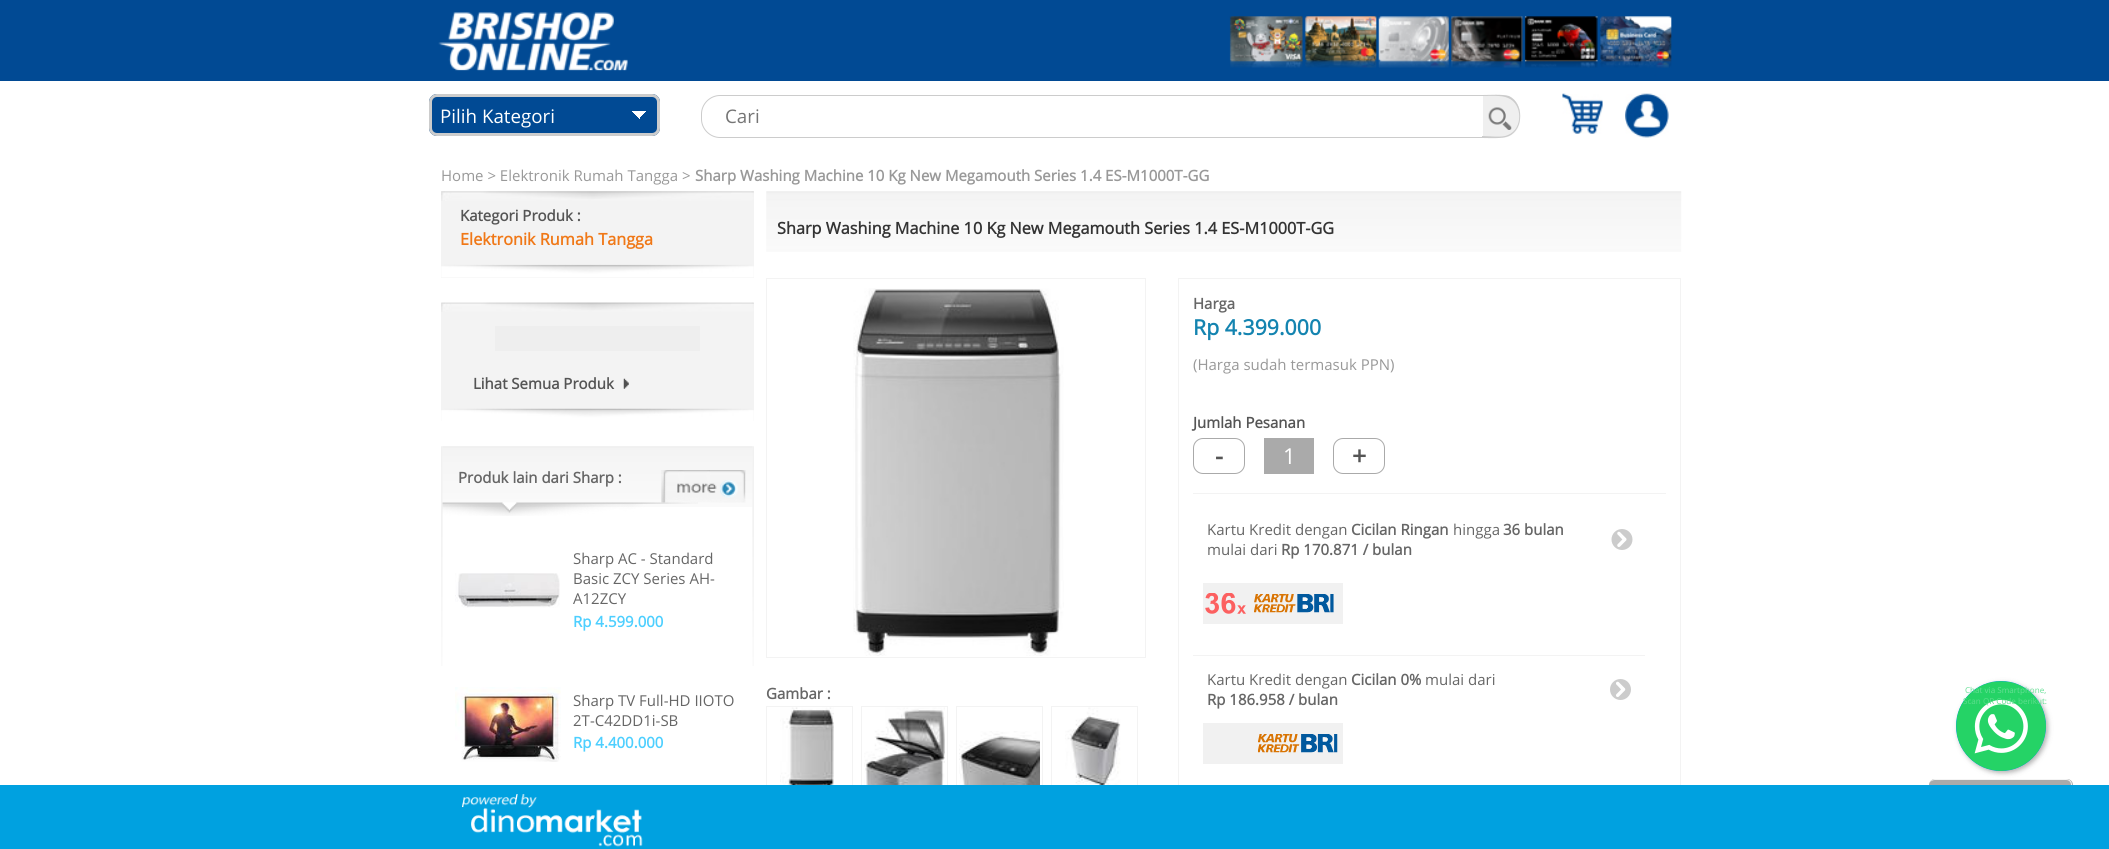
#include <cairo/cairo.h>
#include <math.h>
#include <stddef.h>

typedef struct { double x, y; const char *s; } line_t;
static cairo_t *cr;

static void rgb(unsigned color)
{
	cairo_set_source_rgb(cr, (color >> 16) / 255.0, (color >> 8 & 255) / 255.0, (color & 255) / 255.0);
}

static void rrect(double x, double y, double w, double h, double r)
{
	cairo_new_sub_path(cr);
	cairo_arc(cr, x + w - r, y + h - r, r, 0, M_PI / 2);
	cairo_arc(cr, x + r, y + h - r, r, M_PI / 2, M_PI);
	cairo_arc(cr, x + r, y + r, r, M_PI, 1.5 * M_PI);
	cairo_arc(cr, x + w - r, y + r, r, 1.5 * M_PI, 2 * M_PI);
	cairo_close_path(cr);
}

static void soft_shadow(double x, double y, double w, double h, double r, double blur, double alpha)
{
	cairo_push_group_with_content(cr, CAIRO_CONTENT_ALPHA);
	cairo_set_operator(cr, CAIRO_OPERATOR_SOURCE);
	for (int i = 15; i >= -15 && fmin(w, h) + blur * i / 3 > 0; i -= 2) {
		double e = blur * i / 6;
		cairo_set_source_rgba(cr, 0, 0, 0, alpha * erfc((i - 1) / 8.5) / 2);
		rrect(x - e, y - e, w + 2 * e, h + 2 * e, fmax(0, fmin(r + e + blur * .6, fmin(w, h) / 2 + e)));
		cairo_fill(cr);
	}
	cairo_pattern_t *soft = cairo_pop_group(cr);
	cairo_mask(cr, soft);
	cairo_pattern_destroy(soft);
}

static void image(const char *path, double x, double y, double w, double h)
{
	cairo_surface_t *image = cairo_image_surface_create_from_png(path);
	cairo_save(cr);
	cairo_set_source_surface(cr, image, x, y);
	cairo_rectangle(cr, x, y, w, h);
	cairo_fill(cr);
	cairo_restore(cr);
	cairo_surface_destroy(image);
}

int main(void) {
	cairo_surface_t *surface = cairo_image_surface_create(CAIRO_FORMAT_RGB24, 2109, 849);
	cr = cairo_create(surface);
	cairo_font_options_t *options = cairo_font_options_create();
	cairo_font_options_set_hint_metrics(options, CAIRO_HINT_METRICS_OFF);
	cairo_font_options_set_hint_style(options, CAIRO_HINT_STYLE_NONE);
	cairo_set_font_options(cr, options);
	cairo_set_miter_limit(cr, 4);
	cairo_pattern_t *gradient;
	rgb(0xffffff);
	cairo_paint(cr);
	rgb(0x014a94);
	cairo_rectangle(cr, 0, 0, 2109, 81);
	cairo_fill(cr);
	image("img/1.png", 438, 12, 190, 59);
	image("img/2.png", 1229, 16, 443, 52);
	rrect(429, 94, 231, 42, 8);
	cairo_fill(cr);
	gradient = cairo_pattern_create_linear(639, 111, 647, 119);
	cairo_pattern_add_color_stop_rgba(gradient, 0.5, 1, 1, 1, 1);
	cairo_pattern_add_color_stop_rgba(gradient, 0.5, 0.004, 0.29, 0.58, 1);
	cairo_set_source(cr, gradient);
	cairo_pattern_destroy(gradient);
	cairo_rectangle(cr, 639, 111, 9, 7);
	cairo_fill(cr);
	gradient = cairo_pattern_create_linear(632, 119, 640, 111);
	cairo_pattern_add_color_stop_rgba(gradient, 0.5, 1, 1, 1, 0);
	cairo_pattern_add_color_stop_rgba(gradient, 0.5, 1, 1, 1, 1);
	cairo_set_source(cr, gradient);
	cairo_pattern_destroy(gradient);
	cairo_rectangle(cr, 631, 111, 9, 8);
	cairo_fill(cr);
	rrect(430.5, 95.5, 228, 39, 6.5);
	rgb(0xcccccc);
	cairo_set_line_width(cr, 3);
	cairo_stroke(cr);
	cairo_new_path(cr);
	cairo_move_to(cr, 720, 95.5);
	cairo_line_to(cr, 1484.5, 95.5);
	cairo_line_to(cr, 1484.5, 137.5);
	cairo_line_to(cr, 720, 137.5);
	cairo_curve_to(cr, 710, 137.5, 701.5, 129, 701.5, 119);
	cairo_line_to(cr, 701.5, 114);
	cairo_curve_to(cr, 701.5, 104, 710, 95.5, 720, 95.5);
	cairo_close_path(cr);
	cairo_set_line_width(cr, 1);
	cairo_stroke(cr);
	rgb(0xefefef);
	cairo_new_path(cr);
	cairo_move_to(cr, 1483, 95);
	cairo_line_to(cr, 1501.5, 95);
	cairo_curve_to(cr, 1511.5, 95, 1520, 103.5, 1520, 113.5);
	cairo_line_to(cr, 1520, 119.5);
	cairo_curve_to(cr, 1520, 129.5, 1511.5, 138, 1501.5, 138);
	cairo_line_to(cr, 1483, 138);
	cairo_close_path(cr);
	cairo_fill(cr);
	rgb(0xcccccc);
	cairo_set_fill_rule(cr, CAIRO_FILL_RULE_EVEN_ODD);
	cairo_new_path(cr);
	cairo_move_to(cr, 1482, 95);
	cairo_curve_to(cr, 1490, 95, 1502, 94, 1509, 96);
	cairo_curve_to(cr, 1524, 103, 1524, 129, 1509, 136);
	cairo_curve_to(cr, 1502, 139, 1490, 138, 1482, 138);
	cairo_close_path(cr);
	cairo_move_to(cr, 1482, 96);
	cairo_curve_to(cr, 1490, 96, 1502, 95, 1508, 98);
	cairo_curve_to(cr, 1523, 104, 1523, 129, 1508, 135);
	cairo_curve_to(cr, 1502, 138, 1490, 136, 1482, 136);
	cairo_close_path(cr);
	cairo_fill(cr);
	image("img/3.png", 1488, 107, 24, 23);
	image("img/4.png", 1562, 93, 41, 41);
	image("img/5.png", 1625, 93, 44, 45);
	rgb(0xf3f3f3);
	cairo_rectangle(cr, 441, 191, 313, 87);
	cairo_fill(cr);
	image("img/6.png", 441, 191, 313, 10);
	image("img/7.png", 441, 264, 313, 14);
	cairo_rectangle(cr, 441, 303, 313, 118);
	cairo_fill(cr);
	image("img/8.png", 441, 302, 313, 10);
	rgb(0xeeeeee);
	cairo_rectangle(cr, 495, 326, 205, 25);
	cairo_fill(cr);
	image("img/9.png", 623, 378, 6, 11);
	image("img/10.png", 441, 408, 313, 13);
	image("img/12.png", 442, 446, 311, 61);
	image("img/11.png", 441, 446, 2, 220);
	image("img/13.png", 661, 470, 85, 33);
	image("img/14.png", 442, 502, 256, 14);
	image("img/15.png", 455, 573, 105, 35);
	image("img/16.png", 455, 687, 106, 75);
	image("img/17.png", 752, 446, 2, 220);
	image("img/18.png", 766, 191, 916, 61);
	cairo_rectangle(cr, 766.5, 278.5, 379, 379);
	rgb(0xf3f3f3);
	cairo_stroke(cr);
	image("img/19.png", 853, 288, 211, 368);
	cairo_rectangle(cr, 766.5, 706.5, 86, 86);
	cairo_stroke(cr);
	image("img/20.png", 780, 707, 54, 78);
	cairo_rectangle(cr, 861.5, 706.5, 86, 86);
	cairo_stroke(cr);
	image("img/21.png", 864, 707, 81, 78);
	cairo_rectangle(cr, 956.5, 706.5, 86, 86);
	cairo_stroke(cr);
	image("img/22.png", 959, 731, 81, 54);
	cairo_rectangle(cr, 1051.5, 706.5, 86, 86);
	cairo_stroke(cr);
	image("img/23.png", 1065, 707, 56, 78);
	cairo_rectangle(cr, 1178, 278, 503, 507);
	cairo_fill(cr);
	rgb(0xffffff);
	cairo_rectangle(cr, 1179, 279, 501, 506);
	cairo_fill(cr);
	rrect(1193.5, 438.5, 51, 35, 9.5);
	rgb(0xaaaaaa);
	cairo_stroke(cr);
	cairo_rectangle(cr, 1264, 438, 50, 36);
	cairo_fill(cr);
	rrect(1333.5, 438.5, 51, 35, 9.5);
	cairo_stroke(cr);
	rgb(0xf3f3f3);
	cairo_rectangle(cr, 1193, 493, 473, 1);
	cairo_fill(cr);
	image("img/24.png", 1611, 529, 22, 21);
	rgb(0xf1f1f1);
	cairo_rectangle(cr, 1203, 583, 140, 41);
	cairo_fill(cr);
	image("img/25.png", 1205, 593, 41, 21);
	image("img/26.png", 1254, 594, 80, 19);
	rgb(0xf3f3f3);
	cairo_rectangle(cr, 1193, 655, 452, 1);
	cairo_fill(cr);
	image("img/27.png", 1610, 679, 21, 21);
	rgb(0xf1f1f1);
	cairo_rectangle(cr, 1203, 723, 140, 41);
	cairo_fill(cr);
	image("img/28.png", 1258, 734, 80, 19);
	rgb(0xaaaaaa);
	rrect(1929, 779, 144, 34, 6);
	cairo_fill(cr);
	rgb(0xf4f4f4);
	cairo_new_path(cr);
	cairo_move_to(cr, 1935, 779);
	cairo_line_to(cr, 2066, 779);
	cairo_curve_to(cr, 2070, 779, 2072, 782, 2072, 785);
	cairo_line_to(cr, 2072, 806);
	cairo_curve_to(cr, 2072, 810, 2070, 812, 2066, 812);
	cairo_line_to(cr, 1935, 812);
	cairo_curve_to(cr, 1932, 812, 1929, 810, 1929, 806);
	cairo_line_to(cr, 1929, 785);
	cairo_curve_to(cr, 1929, 782, 1932, 779, 1935, 779);
	cairo_close_path(cr);
	cairo_move_to(cr, 1935, 780);
	cairo_line_to(cr, 2066, 780);
	cairo_curve_to(cr, 2069, 780, 2071, 782, 2071, 785);
	cairo_line_to(cr, 2071, 806);
	cairo_curve_to(cr, 2071, 809, 2069, 811, 2066, 811);
	cairo_line_to(cr, 1935, 811);
	cairo_curve_to(cr, 1932, 811, 1929, 809, 1929, 806);
	cairo_line_to(cr, 1929, 785);
	cairo_curve_to(cr, 1929, 782, 1932, 780, 1935, 780);
	cairo_close_path(cr);
	cairo_fill(cr);
	rgb(0x3c3c3c);
	soft_shadow(1958, 683, 90, 90, 45, 2.5, 0.4);
	rgb(0x00a1e0);
	cairo_arc(cr, 2001, 726, 45, 0, 2 * M_PI);
	cairo_fill(cr);
	image("img/29.png", 1956, 681, 90, 90);
	cairo_rectangle(cr, 0, 785, 2109, 64);
	cairo_fill(cr);
	image("img/30.png", 462, 794, 181, 53);
	cairo_select_font_face(cr, "Open Sans", CAIRO_FONT_SLANT_NORMAL, CAIRO_FONT_WEIGHT_NORMAL);
	cairo_set_font_size(cr, 18.75);
	rgb(0xffffff);
	cairo_move_to(cr, 440, 123);
	cairo_show_text(cr, "Pilih Kategori");
	rgb(0x757575);
	cairo_move_to(cr, 725, 123);
	cairo_show_text(cr, "Cari");
	cairo_set_font_size(cr, 15);
	rgb(0x999999);
	cairo_move_to(cr, 441, 181);
	cairo_show_text(cr, "Home > Elektronik Rumah Tangga >");
	cairo_select_font_face(cr, "Open Sans", CAIRO_FONT_SLANT_NORMAL, CAIRO_FONT_WEIGHT_BOLD);
	cairo_move_to(cr, 695, 181);
	cairo_show_text(cr, "Sharp Washing Machine 10 Kg New Megamouth Series 1.4 ES-M1000T-GG");
	rgb(0x555555);
	cairo_move_to(cr, 460, 221);
	cairo_show_text(cr, "Kategori Produk :");
	cairo_set_font_size(cr, 16.25);
	rgb(0xf07817);
	cairo_move_to(cr, 460, 245);
	cairo_show_text(cr, "Elektronik Rumah Tangga");
	cairo_set_font_size(cr, 15);
	rgb(0x555555);
	cairo_move_to(cr, 473, 389);
	cairo_show_text(cr, "Lihat Semua Produk");
	rgb(0x666666);
	cairo_move_to(cr, 458, 483);
	cairo_show_text(cr, "Produk lain dari Sharp :");
	cairo_select_font_face(cr, "Open Sans", CAIRO_FONT_SLANT_NORMAL, CAIRO_FONT_WEIGHT_NORMAL);
	{
		static const line_t items[] = {
			{573, 564, "Sharp AC - Standard"},
			{573, 584, "Basic ZCY Series AH-"},
			{573, 604, "A12ZCY"},
		};
		for (size_t i = 0; i < sizeof items / sizeof *items; i++) {
			cairo_move_to(cr, items[i].x, items[i].y);
			cairo_show_text(cr, items[i].s);
		}
	}
	cairo_select_font_face(cr, "Open Sans", CAIRO_FONT_SLANT_NORMAL, CAIRO_FONT_WEIGHT_BOLD);
	rgb(0x4dcfff);
	cairo_move_to(cr, 573, 627);
	cairo_show_text(cr, "Rp 4.599.000");
	cairo_select_font_face(cr, "Open Sans", CAIRO_FONT_SLANT_NORMAL, CAIRO_FONT_WEIGHT_NORMAL);
	rgb(0x666666);
	cairo_move_to(cr, 573, 706);
	cairo_show_text(cr, "Sharp TV Full-HD IIOTO");
	cairo_move_to(cr, 573, 726);
	cairo_show_text(cr, "2T-C42DD1i-SB");
	cairo_select_font_face(cr, "Open Sans", CAIRO_FONT_SLANT_NORMAL, CAIRO_FONT_WEIGHT_BOLD);
	rgb(0x4dcfff);
	cairo_move_to(cr, 573, 748);
	cairo_show_text(cr, "Rp 4.400.000");
	cairo_set_font_size(cr, 16.25);
	rgb(0x333333);
	cairo_move_to(cr, 777, 234);
	cairo_show_text(cr, "Sharp Washing Machine 10 Kg New Megamouth Series 1.4 ES-M1000T-GG");
	cairo_set_font_size(cr, 15);
	rgb(0x666666);
	cairo_move_to(cr, 766, 699);
	cairo_show_text(cr, "Gambar :");
	cairo_move_to(cr, 1193, 309);
	cairo_show_text(cr, "Harga");
	cairo_set_font_size(cr, 21.25);
	rgb(0x1484b0);
	cairo_move_to(cr, 1193, 335);
	cairo_show_text(cr, "Rp 4.399.000");
	cairo_select_font_face(cr, "Open Sans", CAIRO_FONT_SLANT_NORMAL, CAIRO_FONT_WEIGHT_NORMAL);
	cairo_set_font_size(cr, 15);
	rgb(0x999999);
	cairo_move_to(cr, 1193, 370);
	cairo_show_text(cr, "(Harga sudah termasuk PPN)");
	cairo_select_font_face(cr, "Open Sans", CAIRO_FONT_SLANT_NORMAL, CAIRO_FONT_WEIGHT_BOLD);
	rgb(0x555555);
	cairo_move_to(cr, 1193, 428);
	cairo_show_text(cr, "Jumlah Pesanan");
	cairo_set_font_size(cr, 25);
	cairo_move_to(cr, 1215, 465);
	cairo_show_text(cr, "-");
	cairo_select_font_face(cr, "Open Sans", CAIRO_FONT_SLANT_NORMAL, CAIRO_FONT_WEIGHT_NORMAL);
	cairo_set_font_size(cr, 22);
	rgb(0xffffff);
	cairo_move_to(cr, 1283, 464);
	cairo_show_text(cr, "1");
	cairo_select_font_face(cr, "Open Sans", CAIRO_FONT_SLANT_NORMAL, CAIRO_FONT_WEIGHT_BOLD);
	cairo_set_font_size(cr, 25);
	rgb(0x555555);
	cairo_move_to(cr, 1352, 465);
	cairo_show_text(cr, "+");
	cairo_select_font_face(cr, "Open Sans", CAIRO_FONT_SLANT_NORMAL, CAIRO_FONT_WEIGHT_NORMAL);
	cairo_set_font_size(cr, 15);
	rgb(0x666666);
	cairo_move_to(cr, 1207, 535);
	cairo_show_text(cr, "Kartu Kredit dengan");
	cairo_select_font_face(cr, "Open Sans", CAIRO_FONT_SLANT_NORMAL, CAIRO_FONT_WEIGHT_BOLD);
	cairo_move_to(cr, 1351, 535);
	cairo_show_text(cr, "Cicilan Ringan");
	cairo_select_font_face(cr, "Open Sans", CAIRO_FONT_SLANT_NORMAL, CAIRO_FONT_WEIGHT_NORMAL);
	cairo_move_to(cr, 1453, 535);
	cairo_show_text(cr, "hingga");
	cairo_select_font_face(cr, "Open Sans", CAIRO_FONT_SLANT_NORMAL, CAIRO_FONT_WEIGHT_BOLD);
	cairo_move_to(cr, 1503, 535);
	cairo_show_text(cr, "36 bulan");
	cairo_select_font_face(cr, "Open Sans", CAIRO_FONT_SLANT_NORMAL, CAIRO_FONT_WEIGHT_NORMAL);
	cairo_move_to(cr, 1207, 555);
	cairo_show_text(cr, "mulai dari");
	cairo_select_font_face(cr, "Open Sans", CAIRO_FONT_SLANT_NORMAL, CAIRO_FONT_WEIGHT_BOLD);
	cairo_move_to(cr, 1281, 555);
	cairo_show_text(cr, "Rp 170.871 / bulan");
	cairo_select_font_face(cr, "Open Sans", CAIRO_FONT_SLANT_NORMAL, CAIRO_FONT_WEIGHT_NORMAL);
	cairo_move_to(cr, 1207, 685);
	cairo_show_text(cr, "Kartu Kredit dengan");
	cairo_select_font_face(cr, "Open Sans", CAIRO_FONT_SLANT_NORMAL, CAIRO_FONT_WEIGHT_BOLD);
	cairo_move_to(cr, 1351, 685);
	cairo_show_text(cr, "Cicilan 0%");
	cairo_select_font_face(cr, "Open Sans", CAIRO_FONT_SLANT_NORMAL, CAIRO_FONT_WEIGHT_NORMAL);
	cairo_move_to(cr, 1425, 685);
	cairo_show_text(cr, "mulai dari");
	cairo_select_font_face(cr, "Open Sans", CAIRO_FONT_SLANT_NORMAL, CAIRO_FONT_WEIGHT_BOLD);
	cairo_move_to(cr, 1207, 705);
	cairo_show_text(cr, "Rp 186.958 / bulan");
	cairo_select_font_face(cr, "Open Sans", CAIRO_FONT_SLANT_NORMAL, CAIRO_FONT_WEIGHT_NORMAL);
	cairo_set_font_size(cr, 8.1);
	rgb(0x66df95);
	cairo_move_to(cr, 1965, 693);
	cairo_show_text(cr, "Chat via Smartphone,");
	rgb(0x5cdd8d);
	cairo_move_to(cr, 1963, 704);
	cairo_show_text(cr, "Scan QR Code berikut:");
	cairo_surface_write_to_png(surface, "page.png");
	cairo_font_options_destroy(options);
	cairo_destroy(cr);
	cairo_surface_destroy(surface);
	return 0;
}
